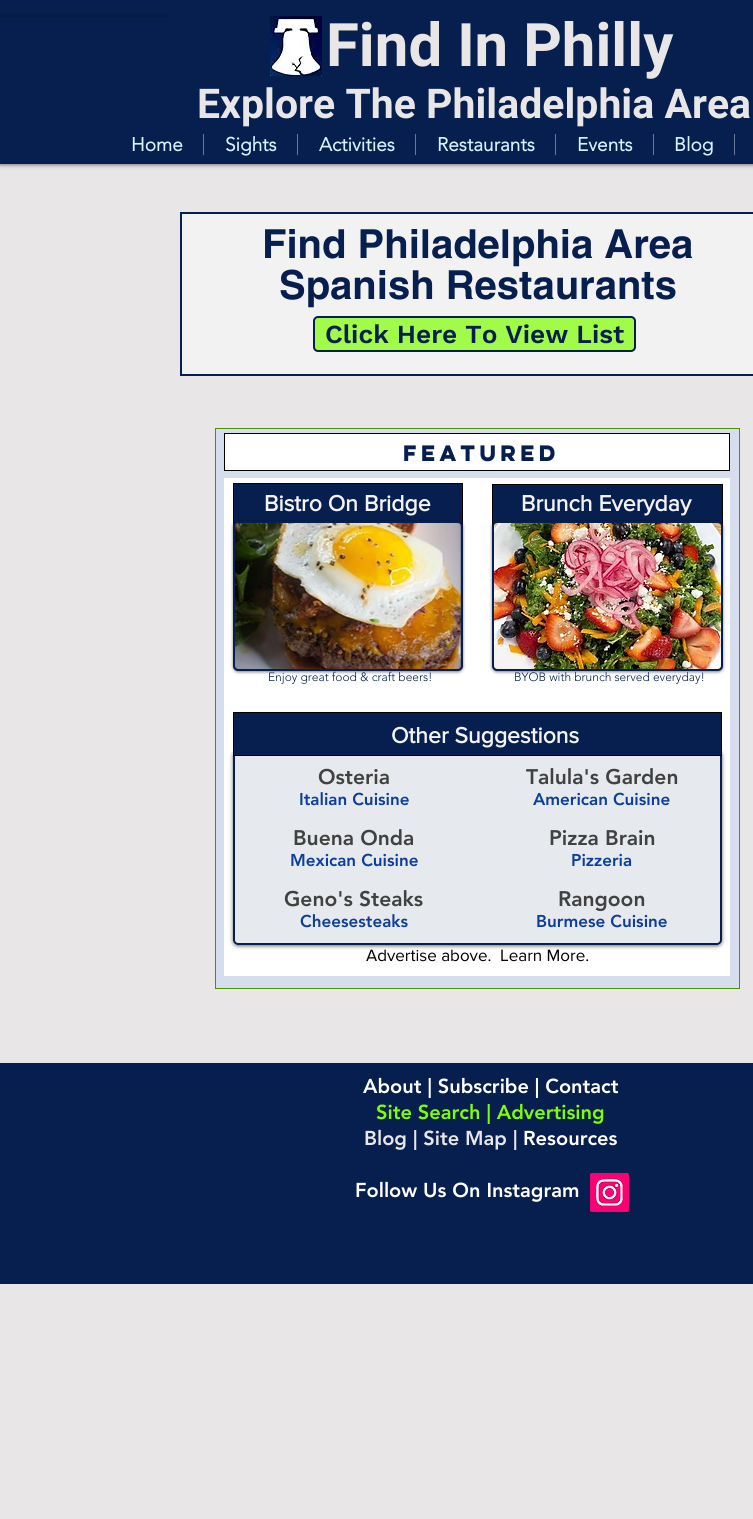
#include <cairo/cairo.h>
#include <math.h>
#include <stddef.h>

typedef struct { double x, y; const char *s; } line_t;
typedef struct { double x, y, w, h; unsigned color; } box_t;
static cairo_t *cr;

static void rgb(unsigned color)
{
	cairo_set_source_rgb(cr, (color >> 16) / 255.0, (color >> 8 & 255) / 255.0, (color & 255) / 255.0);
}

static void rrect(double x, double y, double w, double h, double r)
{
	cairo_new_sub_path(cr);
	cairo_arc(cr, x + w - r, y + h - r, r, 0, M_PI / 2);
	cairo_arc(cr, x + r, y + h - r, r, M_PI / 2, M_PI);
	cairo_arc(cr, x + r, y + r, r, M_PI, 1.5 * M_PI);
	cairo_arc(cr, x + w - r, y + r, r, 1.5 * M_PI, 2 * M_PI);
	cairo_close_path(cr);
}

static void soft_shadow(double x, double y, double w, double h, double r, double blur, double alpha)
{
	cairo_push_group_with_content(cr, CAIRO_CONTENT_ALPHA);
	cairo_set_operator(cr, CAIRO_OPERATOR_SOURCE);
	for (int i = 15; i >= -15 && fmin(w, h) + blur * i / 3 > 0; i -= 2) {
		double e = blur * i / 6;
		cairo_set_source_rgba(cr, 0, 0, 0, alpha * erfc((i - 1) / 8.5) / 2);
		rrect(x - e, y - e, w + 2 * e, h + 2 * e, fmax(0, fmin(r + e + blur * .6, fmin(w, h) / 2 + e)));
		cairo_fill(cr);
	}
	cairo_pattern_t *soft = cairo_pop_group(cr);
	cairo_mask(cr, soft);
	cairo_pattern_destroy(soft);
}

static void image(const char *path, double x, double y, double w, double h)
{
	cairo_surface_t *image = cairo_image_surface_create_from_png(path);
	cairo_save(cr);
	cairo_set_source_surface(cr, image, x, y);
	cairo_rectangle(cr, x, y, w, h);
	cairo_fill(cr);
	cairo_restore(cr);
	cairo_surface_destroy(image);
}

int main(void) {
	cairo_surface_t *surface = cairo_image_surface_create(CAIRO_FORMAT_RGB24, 753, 1519);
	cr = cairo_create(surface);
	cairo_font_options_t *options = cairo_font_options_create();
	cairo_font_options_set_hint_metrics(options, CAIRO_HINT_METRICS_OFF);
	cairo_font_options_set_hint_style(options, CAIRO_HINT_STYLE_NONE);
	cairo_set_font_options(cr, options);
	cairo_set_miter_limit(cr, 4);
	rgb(0xe8e6e6);
	cairo_paint(cr);
	rgb(0x000000);
	soft_shadow(0, 0, 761, 164, 0, 2.5, 0.7);
	rgb(0x071f4e);
	cairo_rectangle(cr, 0, 0, 753, 164);
	cairo_fill(cr);
	image("img/1.png", 0, 13, 168, 4);
	image("img/2.png", 270, 16, 52, 60);
	{
		static const box_t items[] = {
			{203, 134, 1, 21, 0x6a7995},
			{297, 134, 1, 21, 0x6a7995},
			{415, 134, 1, 21, 0x6a7995},
			{555, 134, 1, 21, 0x6a7995},
			{653, 134, 1, 21, 0x6a7995},
			{734, 134, 1, 21, 0x6a7995},
		};
		for (size_t i = 0; i < sizeof items / sizeof *items; i++) {
			rgb(items[i].color);
			cairo_rectangle(cr, items[i].x, items[i].y, items[i].w, items[i].h);
			cairo_fill(cr);
		}
	}
	rgb(0xf2f2f2);
	cairo_rectangle(cr, 181, 213, 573, 162);
	cairo_fill_preserve(cr);
	rgb(0x071f4e);
	cairo_stroke(cr);
	rgb(0xa1fb49);
	rrect(314, 317, 321, 34, 4);
	cairo_fill_preserve(cr);
	rgb(0x071f4e);
	cairo_stroke(cr);
	rgb(0xd6ddec);
	cairo_rectangle(cr, 215.5, 428.5, 524, 560);
	cairo_fill_preserve(cr);
	rgb(0x4a9401);
	cairo_set_line_width(cr, 1);
	cairo_stroke(cr);
	rgb(0xffffff);
	cairo_rectangle(cr, 224.5, 433.5, 505, 37);
	cairo_fill_preserve(cr);
	rgb(0x000000);
	cairo_stroke(cr);
	rgb(0xffffff);
	cairo_rectangle(cr, 224, 478, 506, 498);
	cairo_fill(cr);
	rgb(0x071f4e);
	cairo_rectangle(cr, 234, 484, 228, 39);
	cairo_fill(cr);
	cairo_rectangle(cr, 233.5, 483.5, 229, 81);
	rgb(0x000000);
	cairo_stroke(cr);
	rgb(0x071f4e);
	cairo_rectangle(cr, 493, 485, 229, 38);
	cairo_fill(cr);
	cairo_rectangle(cr, 492.5, 484.5, 230, 81);
	rgb(0x000000);
	cairo_stroke(cr);
	rgb(0x000000);
	soft_shadow(233, 522, 230, 150, 5, 1.5, 0.5);
	rgb(0x071f4e);
	rrect(234, 522, 228, 148, 4);
	cairo_fill_preserve(cr);
	cairo_set_line_width(cr, 2);
	cairo_stroke(cr);
	image("img/3.png", 235, 523, 226, 146);
	rgb(0x000000);
	soft_shadow(492, 522, 231, 150, 5, 1.5, 0.5);
	rgb(0x071f4e);
	rrect(493, 522, 229, 148, 4);
	cairo_fill_preserve(cr);
	cairo_stroke(cr);
	image("img/4.png", 494, 523, 227, 146);
	cairo_save(cr);
	cairo_set_fill_rule(cr, CAIRO_FILL_RULE_EVEN_ODD);
	cairo_new_path(cr);
	cairo_move_to(cr, 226, 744);
	cairo_line_to(cr, 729, 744);
	cairo_line_to(cr, 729, 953);
	cairo_line_to(cr, 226, 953);
	cairo_close_path(cr);
	cairo_move_to(cr, 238, 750);
	cairo_line_to(cr, 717, 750);
	cairo_curve_to(cr, 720, 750, 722, 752, 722, 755);
	cairo_line_to(cr, 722, 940);
	cairo_curve_to(cr, 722, 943, 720, 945, 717, 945);
	cairo_line_to(cr, 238, 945);
	cairo_curve_to(cr, 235, 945, 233, 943, 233, 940);
	cairo_line_to(cr, 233, 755);
	cairo_curve_to(cr, 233, 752, 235, 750, 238, 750);
	cairo_close_path(cr);
	cairo_clip(cr);
	rgb(0x000000);
	soft_shadow(233, 751, 489, 195, 5, 2, 0.6);
	cairo_restore(cr);
	cairo_set_source_rgba(cr, 0.027, 0.122, 0.306, 0.1);
	rrect(234, 751, 487, 193, 4);
	cairo_fill_preserve(cr);
	rgb(0x071f4e);
	cairo_stroke(cr);
	cairo_rectangle(cr, 233.5, 712.5, 488, 43);
	cairo_fill_preserve(cr);
	rgb(0x000000);
	cairo_set_line_width(cr, 1);
	cairo_stroke(cr);
	rgb(0x071f4e);
	cairo_rectangle(cr, 0, 1063, 753, 221);
	cairo_fill(cr);
	image("img/5.png", 590, 1173, 39, 39);
	cairo_select_font_face(cr, "Roboto", CAIRO_FONT_SLANT_NORMAL, CAIRO_FONT_WEIGHT_BOLD);
	cairo_set_font_size(cr, 60);
	rgb(0xe8e6e6);
	cairo_move_to(cr, 326, 66);
	cairo_show_text(cr, "Find In Philly");
	cairo_set_font_size(cr, 41);
	cairo_move_to(cr, 197, 118);
	cairo_show_text(cr, "Explore The Philadelphia Area");
	cairo_select_font_face(cr, "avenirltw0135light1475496", CAIRO_FONT_SLANT_NORMAL, CAIRO_FONT_WEIGHT_BOLD);
	cairo_set_font_size(cr, 19);
	rgb(0xd9f0fd);
	{
		static const line_t items[] = {
			{131, 151, "Home"},
			{225, 151, "Sights"},
			{319, 151, "Activities"},
			{437, 151, "Restaurants"},
			{577, 151, "Events"},
			{674, 151, "Blog"},
		};
		for (size_t i = 0; i < sizeof items / sizeof *items; i++) {
			cairo_move_to(cr, items[i].x, items[i].y);
			cairo_show_text(cr, items[i].s);
		}
	}
	cairo_select_font_face(cr, "helvetica", CAIRO_FONT_SLANT_NORMAL, CAIRO_FONT_WEIGHT_BOLD);
	cairo_set_font_size(cr, 40);
	rgb(0x071f4e);
	cairo_move_to(cr, 262, 258);
	cairo_show_text(cr, "Find Philadelphia Area");
	cairo_move_to(cr, 279, 299);
	cairo_show_text(cr, "Spanish Restaurants");
	cairo_select_font_face(cr, "Work Sans SemiBold", CAIRO_FONT_SLANT_NORMAL, CAIRO_FONT_WEIGHT_NORMAL);
	cairo_set_font_size(cr, 26);
	cairo_move_to(cr, 325, 343);
	cairo_show_text(cr, "Click Here To View List");
	cairo_select_font_face(cr, "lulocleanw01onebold", CAIRO_FONT_SLANT_NORMAL, CAIRO_FONT_WEIGHT_BOLD);
	cairo_set_font_size(cr, 20);
	cairo_move_to(cr, 403, 461);
	cairo_show_text(cr, "Featured");
	cairo_select_font_face(cr, "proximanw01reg", CAIRO_FONT_SLANT_NORMAL, CAIRO_FONT_WEIGHT_BOLD);
	cairo_set_font_size(cr, 23);
	rgb(0xf2f2f2);
	cairo_move_to(cr, 264, 511);
	cairo_show_text(cr, "Bistro On Bridge");
	cairo_move_to(cr, 521, 511);
	cairo_show_text(cr, "Brunch Everyday");
	cairo_select_font_face(cr, "avenirltw0135light1475496 Light", CAIRO_FONT_SLANT_NORMAL, CAIRO_FONT_WEIGHT_NORMAL);
	cairo_set_font_size(cr, 12);
	rgb(0x071f4e);
	cairo_move_to(cr, 268, 681);
	cairo_show_text(cr, "Enjoy great food & craft beers!");
	cairo_move_to(cr, 514, 681);
	cairo_show_text(cr, "BYOB with brunch served everyday!");
	cairo_select_font_face(cr, "proximanw01reg", CAIRO_FONT_SLANT_NORMAL, CAIRO_FONT_WEIGHT_BOLD);
	cairo_set_font_size(cr, 23);
	rgb(0xf2f2f2);
	cairo_move_to(cr, 391, 743);
	cairo_show_text(cr, "Other Suggestions");
	cairo_select_font_face(cr, "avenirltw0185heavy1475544 Black", CAIRO_FONT_SLANT_NORMAL, CAIRO_FONT_WEIGHT_NORMAL);
	cairo_set_font_size(cr, 21);
	rgb(0x414141);
	cairo_move_to(cr, 318, 784);
	cairo_show_text(cr, "Osteria");
	cairo_set_font_size(cr, 17);
	rgb(0x0e3e9b);
	cairo_move_to(cr, 299, 805);
	cairo_show_text(cr, "Italian Cuisine");
	cairo_set_font_size(cr, 21);
	rgb(0x414141);
	cairo_move_to(cr, 293, 845);
	cairo_show_text(cr, "Buena Onda");
	cairo_set_font_size(cr, 17);
	rgb(0x0e3e9b);
	cairo_move_to(cr, 290, 866);
	cairo_show_text(cr, "Mexican Cuisine");
	cairo_set_font_size(cr, 21);
	rgb(0x414141);
	cairo_move_to(cr, 284, 906);
	cairo_show_text(cr, "Geno's Steaks");
	cairo_set_font_size(cr, 17);
	rgb(0x0e3e9b);
	cairo_move_to(cr, 300, 927);
	cairo_show_text(cr, "Cheesesteaks");
	cairo_set_font_size(cr, 21);
	rgb(0x414141);
	cairo_move_to(cr, 526, 784);
	cairo_show_text(cr, "Talula's Garden");
	cairo_set_font_size(cr, 17);
	rgb(0x0e3e9b);
	cairo_move_to(cr, 533, 805);
	cairo_show_text(cr, "American Cuisine");
	cairo_set_font_size(cr, 21);
	rgb(0x414141);
	cairo_move_to(cr, 549, 845);
	cairo_show_text(cr, "Pizza Brain");
	cairo_set_font_size(cr, 17);
	rgb(0x0e3e9b);
	cairo_move_to(cr, 571, 866);
	cairo_show_text(cr, "Pizzeria");
	cairo_set_font_size(cr, 21);
	rgb(0x414141);
	cairo_move_to(cr, 558, 906);
	cairo_show_text(cr, "Rangoon");
	cairo_set_font_size(cr, 17);
	rgb(0x0e3e9b);
	cairo_move_to(cr, 536, 927);
	cairo_show_text(cr, "Burmese Cuisine");
	cairo_select_font_face(cr, "proximanw01reg", CAIRO_FONT_SLANT_NORMAL, CAIRO_FONT_WEIGHT_NORMAL);
	rgb(0x000000);
	cairo_move_to(cr, 366, 961);
	cairo_show_text(cr, "Advertise above.");
	cairo_move_to(cr, 500, 961);
	cairo_show_text(cr, "Learn More.");
	cairo_select_font_face(cr, "avenirltw0185heavy1475544 Black", CAIRO_FONT_SLANT_NORMAL, CAIRO_FONT_WEIGHT_NORMAL);
	cairo_set_font_size(cr, 20);
	rgb(0xffffff);
	cairo_move_to(cr, 363, 1093);
	cairo_show_text(cr, "About | Subscribe | Contact");
	rgb(0x7eff00);
	cairo_move_to(cr, 376, 1119);
	cairo_show_text(cr, "Site Search | Advertising");
	rgb(0xe8e6e6);
	cairo_move_to(cr, 364, 1145);
	cairo_show_text(cr, "Blog | Site Map |");
	rgb(0xffffff);
	cairo_move_to(cr, 523, 1145);
	cairo_show_text(cr, "Resources");
	cairo_move_to(cr, 355, 1197);
	cairo_show_text(cr, "Follow Us On Instagram");
	cairo_surface_write_to_png(surface, "page.png");
	cairo_font_options_destroy(options);
	cairo_destroy(cr);
	cairo_surface_destroy(surface);
	return 0;
}
